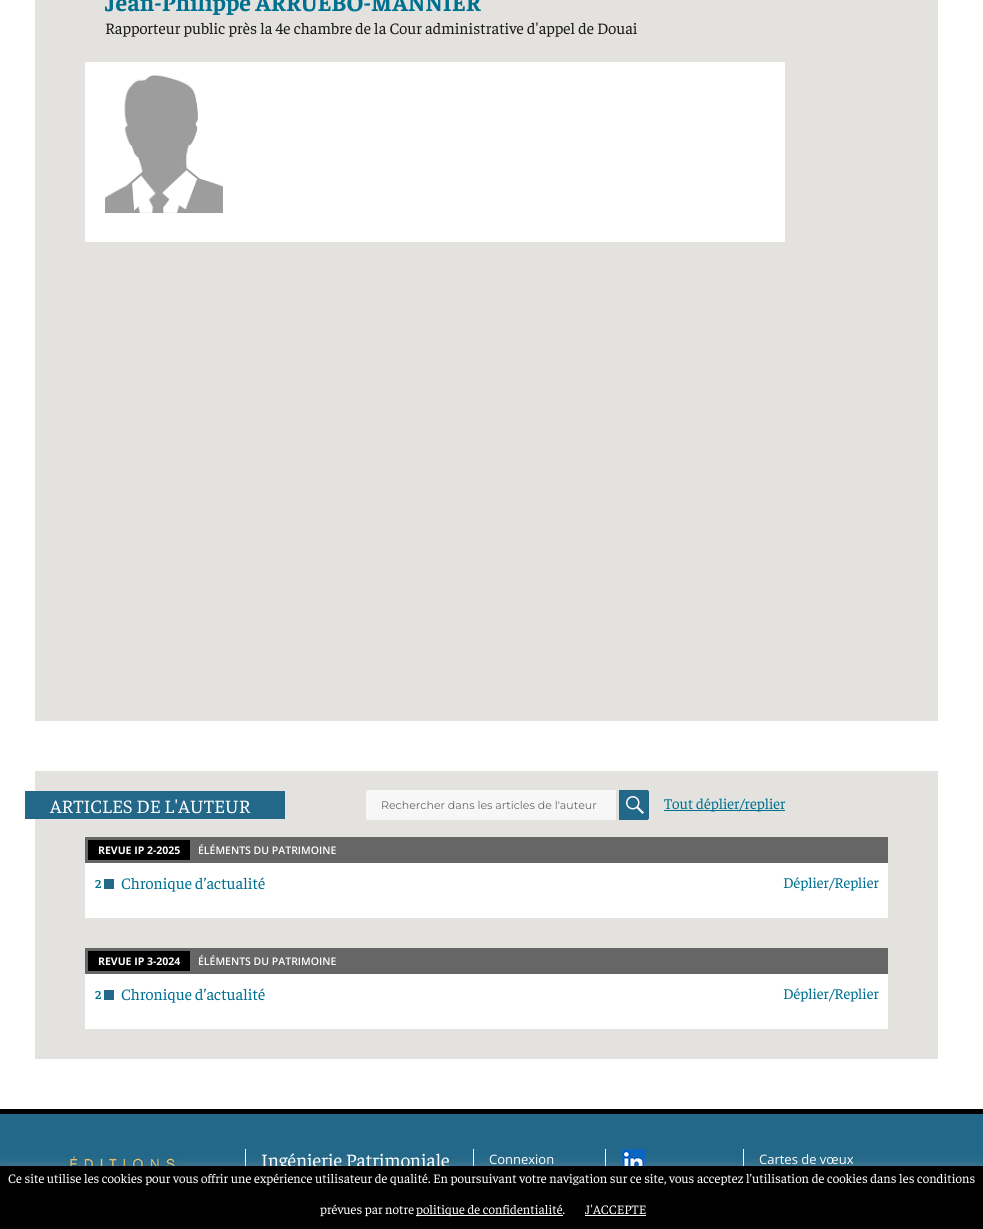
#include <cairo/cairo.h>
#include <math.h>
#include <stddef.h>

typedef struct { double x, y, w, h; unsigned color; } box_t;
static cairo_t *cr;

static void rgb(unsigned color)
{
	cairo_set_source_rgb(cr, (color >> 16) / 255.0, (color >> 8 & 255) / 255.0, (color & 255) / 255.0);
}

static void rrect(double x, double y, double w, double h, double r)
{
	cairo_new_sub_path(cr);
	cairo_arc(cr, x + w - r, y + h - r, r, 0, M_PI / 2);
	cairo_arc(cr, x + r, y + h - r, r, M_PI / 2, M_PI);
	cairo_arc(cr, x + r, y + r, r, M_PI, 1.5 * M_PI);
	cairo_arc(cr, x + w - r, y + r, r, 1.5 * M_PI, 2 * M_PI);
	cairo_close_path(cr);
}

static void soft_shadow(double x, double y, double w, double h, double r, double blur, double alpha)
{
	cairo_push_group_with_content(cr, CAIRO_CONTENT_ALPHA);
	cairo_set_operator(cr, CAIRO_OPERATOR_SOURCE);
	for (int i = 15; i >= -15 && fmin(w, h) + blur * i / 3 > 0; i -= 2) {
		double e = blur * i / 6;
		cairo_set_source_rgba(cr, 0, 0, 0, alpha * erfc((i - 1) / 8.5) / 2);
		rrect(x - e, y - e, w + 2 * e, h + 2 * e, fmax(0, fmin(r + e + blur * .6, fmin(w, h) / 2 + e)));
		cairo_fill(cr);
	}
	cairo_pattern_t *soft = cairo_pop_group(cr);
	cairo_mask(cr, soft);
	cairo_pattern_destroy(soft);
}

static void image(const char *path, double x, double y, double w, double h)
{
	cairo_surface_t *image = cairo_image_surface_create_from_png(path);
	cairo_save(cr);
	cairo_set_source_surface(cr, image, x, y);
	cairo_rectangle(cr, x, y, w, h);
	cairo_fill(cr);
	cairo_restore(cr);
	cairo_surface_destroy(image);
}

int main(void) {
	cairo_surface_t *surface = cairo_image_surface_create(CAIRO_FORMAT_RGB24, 983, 1229);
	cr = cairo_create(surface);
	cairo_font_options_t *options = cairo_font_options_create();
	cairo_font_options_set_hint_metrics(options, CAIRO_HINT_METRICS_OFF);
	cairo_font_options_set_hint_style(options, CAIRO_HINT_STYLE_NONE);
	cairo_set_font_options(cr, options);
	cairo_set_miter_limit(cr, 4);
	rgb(0xffffff);
	cairo_paint(cr);
	rgb(0xe4e2de);
	cairo_rectangle(cr, 35, 0, 903, 721);
	cairo_fill(cr);
	rgb(0xffffff);
	cairo_rectangle(cr, 85, 62, 700, 180);
	cairo_fill(cr);
	image("img/1.png", 105, 75, 118, 138);
	rgb(0xe4e2de);
	cairo_rectangle(cr, 35, 771, 903, 288);
	cairo_fill(cr);
	rgb(0x236889);
	cairo_rectangle(cr, 25, 791, 260, 28);
	cairo_fill(cr);
	rgb(0xf7f7f7);
	cairo_new_path(cr);
	cairo_move_to(cr, 368, 790);
	cairo_line_to(cr, 616, 790);
	cairo_line_to(cr, 616, 820);
	cairo_line_to(cr, 368, 820);
	cairo_curve_to(cr, 367, 820, 366, 819, 366, 818);
	cairo_line_to(cr, 366, 792);
	cairo_curve_to(cr, 366, 791, 367, 790, 368, 790);
	cairo_close_path(cr);
	cairo_fill(cr);
	rgb(0x236889);
	cairo_new_path(cr);
	cairo_move_to(cr, 619, 790);
	cairo_line_to(cr, 647, 790);
	cairo_curve_to(cr, 648, 790, 649, 791, 649, 792);
	cairo_line_to(cr, 649, 818);
	cairo_curve_to(cr, 649, 819, 648, 820, 647, 820);
	cairo_line_to(cr, 619, 820);
	cairo_close_path(cr);
	cairo_fill(cr);
	image("img/2.png", 626, 796, 18, 18);
	{
		static const box_t items[] = {
			{664, 810, 121, 1, 0x007090},
			{85, 863, 803, 55, 0xffffff},
			{85, 837, 803, 26, 0x666666},
			{88, 840, 102, 20, 0x000000},
			{104, 879, 10, 10, 0x236889},
			{85, 974, 803, 55, 0xffffff},
			{85, 948, 803, 26, 0x666666},
			{88, 951, 102, 20, 0x000000},
			{104, 990, 10, 10, 0x236889},
			{0, 1114, 983, 52, 0x236889},
		};
		for (size_t i = 0; i < sizeof items / sizeof *items; i++) {
			rgb(items[i].color);
			cairo_rectangle(cr, items[i].x, items[i].y, items[i].w, items[i].h);
			cairo_fill(cr);
		}
	}
	image("img/3.png", 67, 1155, 111, 11);
	{
		static const box_t items[] = {
			{0, 1109, 983, 5, 0x000000},
			{245, 1149, 1, 17, 0xffffff},
			{473, 1149, 1, 17, 0xffffff},
			{605, 1149, 1, 17, 0xffffff},
		};
		for (size_t i = 0; i < sizeof items / sizeof *items; i++) {
			rgb(items[i].color);
			cairo_rectangle(cr, items[i].x, items[i].y, items[i].w, items[i].h);
			cairo_fill(cr);
		}
	}
	image("img/4.png", 621, 1149, 25, 17);
	cairo_rectangle(cr, 743, 1149, 1, 17);
	cairo_fill(cr);
	rgb(0xacabab);
	soft_shadow(0, 1165, 983, 63, 0, 5, 0.3);
	cairo_select_font_face(cr, "Faustina", CAIRO_FONT_SLANT_NORMAL, CAIRO_FONT_WEIGHT_BOLD);
	cairo_set_font_size(cr, 24);
	rgb(0x007090);
	cairo_move_to(cr, 105, 11);
	cairo_show_text(cr, "Jean-Philippe ARRUEBO-MANNIER");
	cairo_select_font_face(cr, "Faustina", CAIRO_FONT_SLANT_NORMAL, CAIRO_FONT_WEIGHT_NORMAL);
	cairo_set_font_size(cr, 16);
	rgb(0x1a1a1a);
	cairo_move_to(cr, 105, 34);
	cairo_show_text(cr, "Rapporteur public près la 4e chambre de la Cour administrative d'appel de Douai");
	cairo_set_font_size(cr, 19);
	rgb(0xffffff);
	cairo_move_to(cr, 50, 813);
	cairo_show_text(cr, "ARTICLES DE L'AUTEUR");
	cairo_select_font_face(cr, "Montserrat Thin", CAIRO_FONT_SLANT_NORMAL, CAIRO_FONT_WEIGHT_NORMAL);
	cairo_set_font_size(cr, 11);
	rgb(0x686868);
	cairo_move_to(cr, 381, 809);
	cairo_show_text(cr, "Rechercher dans les articles de l'auteur");
	cairo_select_font_face(cr, "Faustina", CAIRO_FONT_SLANT_NORMAL, CAIRO_FONT_WEIGHT_NORMAL);
	cairo_set_font_size(cr, 15);
	rgb(0x007090);
	cairo_move_to(cr, 664, 809);
	cairo_show_text(cr, "Tout déplier/replier");
	cairo_select_font_face(cr, "Open Sans", CAIRO_FONT_SLANT_NORMAL, CAIRO_FONT_WEIGHT_BOLD);
	cairo_set_font_size(cr, 10.5);
	rgb(0xffffff);
	cairo_move_to(cr, 98, 854);
	cairo_show_text(cr, "REVUE IP 2-2025");
	cairo_select_font_face(cr, "Open Sans SemiBold", CAIRO_FONT_SLANT_NORMAL, CAIRO_FONT_WEIGHT_NORMAL);
	cairo_move_to(cr, 198, 854);
	cairo_show_text(cr, "ÉLÉMENTS DU PATRIMOINE");
	cairo_select_font_face(cr, "Faustina", CAIRO_FONT_SLANT_NORMAL, CAIRO_FONT_WEIGHT_BOLD);
	cairo_set_font_size(cr, 12);
	rgb(0x007090);
	cairo_move_to(cr, 95, 888);
	cairo_show_text(cr, "2");
	cairo_select_font_face(cr, "Faustina", CAIRO_FONT_SLANT_NORMAL, CAIRO_FONT_WEIGHT_NORMAL);
	cairo_set_font_size(cr, 16);
	cairo_move_to(cr, 121, 889);
	cairo_show_text(cr, "Chronique d’actualité");
	cairo_set_font_size(cr, 15);
	cairo_move_to(cr, 783, 888);
	cairo_show_text(cr, "Déplier/Replier");
	cairo_select_font_face(cr, "Open Sans", CAIRO_FONT_SLANT_NORMAL, CAIRO_FONT_WEIGHT_BOLD);
	cairo_set_font_size(cr, 10.5);
	rgb(0xffffff);
	cairo_move_to(cr, 98, 965);
	cairo_show_text(cr, "REVUE IP 3-2024");
	cairo_select_font_face(cr, "Open Sans SemiBold", CAIRO_FONT_SLANT_NORMAL, CAIRO_FONT_WEIGHT_NORMAL);
	cairo_move_to(cr, 198, 965);
	cairo_show_text(cr, "ÉLÉMENTS DU PATRIMOINE");
	cairo_select_font_face(cr, "Faustina", CAIRO_FONT_SLANT_NORMAL, CAIRO_FONT_WEIGHT_BOLD);
	cairo_set_font_size(cr, 12);
	rgb(0x007090);
	cairo_move_to(cr, 95, 999);
	cairo_show_text(cr, "2");
	cairo_select_font_face(cr, "Faustina", CAIRO_FONT_SLANT_NORMAL, CAIRO_FONT_WEIGHT_NORMAL);
	cairo_set_font_size(cr, 16);
	cairo_move_to(cr, 121, 1000);
	cairo_show_text(cr, "Chronique d’actualité");
	cairo_set_font_size(cr, 15);
	cairo_move_to(cr, 783, 999);
	cairo_show_text(cr, "Déplier/Replier");
	cairo_set_font_size(cr, 19);
	rgb(0xffffff);
	cairo_move_to(cr, 261, 1167);
	cairo_show_text(cr, "Ingénierie Patrimoniale");
	cairo_select_font_face(cr, "Open Sans", CAIRO_FONT_SLANT_NORMAL, CAIRO_FONT_WEIGHT_NORMAL);
	cairo_set_font_size(cr, 13);
	cairo_move_to(cr, 489, 1164);
	cairo_show_text(cr, "Connexion");
	cairo_move_to(cr, 759, 1164);
	cairo_show_text(cr, "Cartes de vœux");
	rgb(0x000000);
	cairo_rectangle(cr, 0, 1166, 983, 63);
	cairo_fill(cr);
	cairo_select_font_face(cr, "Faustina", CAIRO_FONT_SLANT_NORMAL, CAIRO_FONT_WEIGHT_NORMAL);
	rgb(0xffffff);
	cairo_move_to(cr, 8, 1183);
	cairo_show_text(cr, "Ce site utilise les cookies pour vous offrir une expérience utilisateur de qualité. En poursuivant votre navigation sur ce site, vous acceptez l’utilisation de cookies dans les conditions");
	cairo_move_to(cr, 320, 1214);
	cairo_show_text(cr, "prévues par notre");
	cairo_rectangle(cr, 416, 1215, 147, 1);
	cairo_fill(cr);
	cairo_move_to(cr, 416, 1214);
	cairo_show_text(cr, "politique de confidentialité.");
	cairo_move_to(cr, 585, 1214);
	cairo_show_text(cr, "J'ACCEPTE");
	cairo_rectangle(cr, 585, 1215, 61, 1);
	cairo_fill(cr);
	cairo_surface_write_to_png(surface, "page.png");
	cairo_font_options_destroy(options);
	cairo_destroy(cr);
	cairo_surface_destroy(surface);
	return 0;
}
